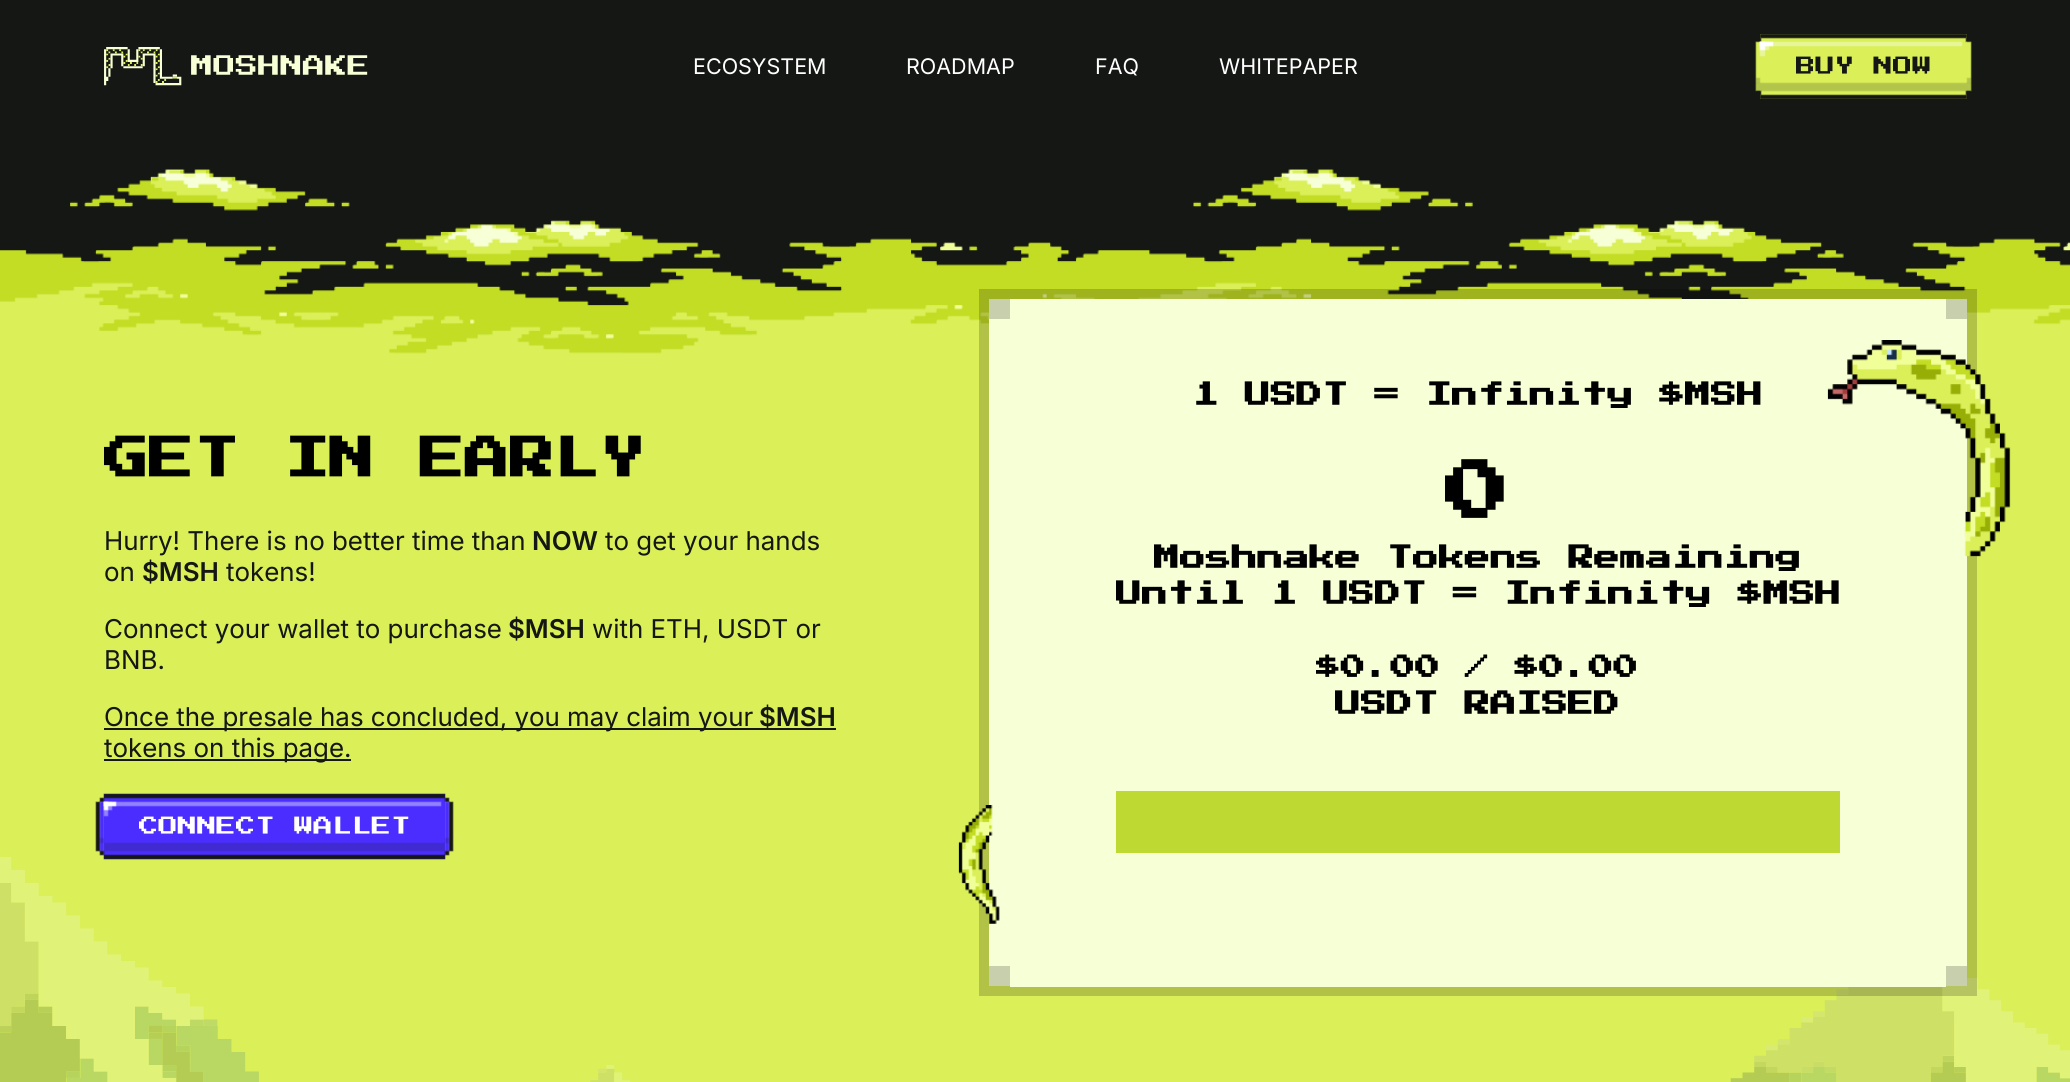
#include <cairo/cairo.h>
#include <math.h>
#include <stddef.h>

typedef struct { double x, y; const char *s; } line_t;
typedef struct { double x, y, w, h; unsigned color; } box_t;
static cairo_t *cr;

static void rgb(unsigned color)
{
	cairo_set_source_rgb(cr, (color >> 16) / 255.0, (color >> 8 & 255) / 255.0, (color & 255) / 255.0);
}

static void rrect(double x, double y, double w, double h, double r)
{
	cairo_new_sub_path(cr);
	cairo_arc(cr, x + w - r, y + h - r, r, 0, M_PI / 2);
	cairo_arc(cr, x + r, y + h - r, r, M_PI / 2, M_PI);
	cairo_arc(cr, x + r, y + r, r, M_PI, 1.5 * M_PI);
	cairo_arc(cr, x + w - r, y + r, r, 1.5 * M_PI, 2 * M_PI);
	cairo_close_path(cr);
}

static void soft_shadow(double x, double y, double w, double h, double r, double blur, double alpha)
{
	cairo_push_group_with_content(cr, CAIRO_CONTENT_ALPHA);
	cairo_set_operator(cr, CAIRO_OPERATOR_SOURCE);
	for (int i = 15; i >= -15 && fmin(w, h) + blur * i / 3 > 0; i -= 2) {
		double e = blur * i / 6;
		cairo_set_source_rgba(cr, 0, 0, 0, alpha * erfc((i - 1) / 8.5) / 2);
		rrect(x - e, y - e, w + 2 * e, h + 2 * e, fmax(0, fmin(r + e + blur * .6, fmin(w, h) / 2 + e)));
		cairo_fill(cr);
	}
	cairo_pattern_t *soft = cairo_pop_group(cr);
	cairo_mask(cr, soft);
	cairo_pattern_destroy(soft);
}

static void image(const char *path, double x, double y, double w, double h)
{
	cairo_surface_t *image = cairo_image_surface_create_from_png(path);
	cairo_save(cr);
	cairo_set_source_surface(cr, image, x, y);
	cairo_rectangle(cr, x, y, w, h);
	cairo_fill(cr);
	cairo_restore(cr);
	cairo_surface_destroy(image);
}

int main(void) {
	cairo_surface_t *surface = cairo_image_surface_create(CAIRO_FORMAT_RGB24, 2070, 1082);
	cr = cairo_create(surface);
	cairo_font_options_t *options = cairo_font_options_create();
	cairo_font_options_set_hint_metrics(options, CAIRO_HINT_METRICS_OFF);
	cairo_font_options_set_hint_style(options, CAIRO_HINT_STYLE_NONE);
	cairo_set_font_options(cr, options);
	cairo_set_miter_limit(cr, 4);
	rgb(0x141713);
	cairo_paint(cr);
	image("img/1.png", 104, 47, 264, 39);
	rgb(0xdaef58);
	cairo_rectangle(cr, 1760, 34, 207, 65);
	cairo_fill(cr);
	rgb(0x141713);
	soft_shadow(1760, 34, 207, 4, 0, 0.5, 1);
	soft_shadow(1760, 95, 207, 4, 0, 0.5, 1);
	soft_shadow(1756, 38, 5, 4, 0, 0.5, 1);
	soft_shadow(1966, 38, 5, 4, 0, 0.5, 1);
	rgb(0xdaef58);
	soft_shadow(1756, 42, 5, 49, 0, 0.5, 1);
	soft_shadow(1966, 42, 5, 49, 0, 0.5, 1);
	rgb(0xffffff);
	soft_shadow(1765, 42, 4, 8, 0, 0.5, 0.4);
	rgb(0x141713);
	soft_shadow(1756, 83, 215, 8, 0, 0.5, 0.2);
	rgb(0xffffff);
	soft_shadow(1760, 42, 5, 8, 0, 0.5, 1);
	soft_shadow(1760, 42, 13, 4, 0, 0.5, 1);
	soft_shadow(1760, 42, 5, 14, 0, 0.5, 0.4);
	soft_shadow(1760, 42, 202, 4, 0, 0.5, 0.4);
	rgb(0x141713);
	soft_shadow(1756, 78, 4, 5, 0, 0.5, 0.2);
	soft_shadow(1967, 78, 4, 5, 0, 0.5, 0.2);
	soft_shadow(1756, 91, 5, 4, 0, 0.5, 1);
	soft_shadow(1966, 91, 5, 4, 0, 0.5, 1);
	rgb(0xdaef58);
	cairo_rectangle(cr, 0, 283, 2070, 799);
	cairo_fill(cr);
	image("img/2.png", 0, 133, 2070, 221);
	rgb(0x141713);
	cairo_rectangle(cr, 104, 728, 732, 2);
	cairo_fill(cr);
	cairo_rectangle(cr, 104, 759, 247, 2);
	cairo_fill(cr);
	image("img/5.png", 0, 857, 259, 225);
	rgb(0x4b2eff);
	cairo_rectangle(cr, 104, 794, 341, 65);
	cairo_fill(cr);
	rgb(0x141713);
	soft_shadow(104, 794, 341, 4, 0, 0.5, 1);
	soft_shadow(104, 855, 341, 4, 0, 0.5, 1);
	soft_shadow(100, 798, 4, 4, 0, 0.5, 1);
	soft_shadow(445, 798, 4, 4, 0, 0.5, 1);
	soft_shadow(96, 802, 4, 49, 0, 0.5, 1);
	soft_shadow(449, 802, 4, 49, 0, 0.5, 1);
	rgb(0xffffff);
	soft_shadow(108, 802, 4, 8, 0, 0.5, 0.4);
	rgb(0x141713);
	soft_shadow(99, 843, 350, 8, 0, 0.5, 0.2);
	rgb(0x4b2eff);
	soft_shadow(100, 802, 4, 49, 0, 0.5, 1);
	soft_shadow(445, 802, 4, 49, 0, 0.5, 1);
	rgb(0xffffff);
	soft_shadow(104, 802, 4, 8, 0, 0.5, 1);
	soft_shadow(104, 802, 12, 4, 0, 0.5, 1);
	soft_shadow(104, 802, 4, 14, 0, 0.5, 0.4);
	soft_shadow(104, 802, 337, 4, 0, 0.5, 0.4);
	rgb(0x141713);
	soft_shadow(99, 838, 5, 5, 0, 0.5, 0.2);
	soft_shadow(445, 838, 4, 5, 0, 0.5, 0.2);
	soft_shadow(100, 851, 4, 4, 0, 0.5, 1);
	soft_shadow(445, 851, 4, 4, 0, 0.5, 1);
	image("img/7.png", 1730, 978, 340, 104);
	cairo_rectangle(cr, 984, 294, 988, 697);
	cairo_set_source_rgba(cr, 0, 0, 0, 0.19);
	cairo_set_line_width(cr, 10);
	cairo_stroke(cr);
	{
		static const box_t items[] = {
			{989, 319, 978, 647, 0xf6ffd5},
			{989, 299, 978, 20, 0xc7cfad},
			{989, 966, 978, 20, 0xc7cfad},
			{1010, 299, 936, 688, 0xf6ffd5},
		};
		for (size_t i = 0; i < sizeof items / sizeof *items; i++) {
			rgb(items[i].color);
			cairo_rectangle(cr, items[i].x, items[i].y, items[i].w, items[i].h);
			cairo_fill(cr);
		}
	}
	image("img/3.png", 1827, 340, 184, 217);
	image("img/4.png", 958, 805, 42, 119);
	rgb(0xbfd933);
	cairo_rectangle(cr, 1116, 791, 724, 62);
	cairo_fill(cr);
	image("img/6.png", 590, 1065, 41, 17);
	cairo_select_font_face(cr, "Inter", CAIRO_FONT_SLANT_NORMAL, CAIRO_FONT_WEIGHT_NORMAL);
	cairo_set_font_size(cr, 21.5);
	rgb(0xffffff);
	{
		static const line_t items[] = {
			{693, 74, "ECOSYSTEM"},
			{906, 74, "ROADMAP"},
			{1095, 74, "FAQ"},
			{1219, 74, "WHITEPAPER"},
		};
		for (size_t i = 0; i < sizeof items / sizeof *items; i++) {
			cairo_move_to(cr, items[i].x, items[i].y);
			cairo_show_text(cr, items[i].s);
		}
	}
	cairo_select_font_face(cr, "Press Start 2P", CAIRO_FONT_SLANT_NORMAL, CAIRO_FONT_WEIGHT_NORMAL);
	cairo_set_font_size(cr, 19.4);
	rgb(0x141713);
	cairo_move_to(cr, 1796, 76);
	cairo_show_text(cr, "BUY NOW");
	cairo_select_font_face(cr, "Press Start 2P", CAIRO_FONT_SLANT_NORMAL, CAIRO_FONT_WEIGHT_BOLD);
	cairo_set_font_size(cr, 45.1);
	rgb(0x000000);
	cairo_move_to(cr, 104, 482);
	cairo_show_text(cr, "GET IN EARLY");
	cairo_select_font_face(cr, "Inter", CAIRO_FONT_SLANT_NORMAL, CAIRO_FONT_WEIGHT_NORMAL);
	cairo_set_font_size(cr, 25.9);
	rgb(0x141713);
	cairo_move_to(cr, 104, 550);
	cairo_show_text(cr, "Hurry! There is no better time than");
	cairo_select_font_face(cr, "Inter SemiBold", CAIRO_FONT_SLANT_NORMAL, CAIRO_FONT_WEIGHT_NORMAL);
	cairo_move_to(cr, 532, 550);
	cairo_show_text(cr, "NOW");
	cairo_select_font_face(cr, "Inter", CAIRO_FONT_SLANT_NORMAL, CAIRO_FONT_WEIGHT_NORMAL);
	cairo_move_to(cr, 605, 550);
	cairo_show_text(cr, "to get your hands");
	cairo_move_to(cr, 104, 581);
	cairo_show_text(cr, "on");
	cairo_select_font_face(cr, "Inter SemiBold", CAIRO_FONT_SLANT_NORMAL, CAIRO_FONT_WEIGHT_NORMAL);
	cairo_move_to(cr, 142, 581);
	cairo_show_text(cr, "$MSH");
	cairo_select_font_face(cr, "Inter", CAIRO_FONT_SLANT_NORMAL, CAIRO_FONT_WEIGHT_NORMAL);
	cairo_move_to(cr, 226, 581);
	cairo_show_text(cr, "tokens!");
	cairo_move_to(cr, 104, 638);
	cairo_show_text(cr, "Connect your wallet to purchase");
	cairo_select_font_face(cr, "Inter SemiBold", CAIRO_FONT_SLANT_NORMAL, CAIRO_FONT_WEIGHT_NORMAL);
	cairo_move_to(cr, 508, 638);
	cairo_show_text(cr, "$MSH");
	cairo_select_font_face(cr, "Inter", CAIRO_FONT_SLANT_NORMAL, CAIRO_FONT_WEIGHT_NORMAL);
	{
		static const line_t items[] = {
			{592, 638, "with ETH, USDT or"},
			{104, 669, "BNB."},
			{104, 726, "Once the presale has concluded, you may claim your"},
		};
		for (size_t i = 0; i < sizeof items / sizeof *items; i++) {
			cairo_move_to(cr, items[i].x, items[i].y);
			cairo_show_text(cr, items[i].s);
		}
	}
	cairo_select_font_face(cr, "Inter SemiBold", CAIRO_FONT_SLANT_NORMAL, CAIRO_FONT_WEIGHT_NORMAL);
	cairo_move_to(cr, 759, 726);
	cairo_show_text(cr, "$MSH");
	cairo_select_font_face(cr, "Inter", CAIRO_FONT_SLANT_NORMAL, CAIRO_FONT_WEIGHT_NORMAL);
	cairo_move_to(cr, 104, 757);
	cairo_show_text(cr, "tokens on this page.");
	cairo_select_font_face(cr, "Press Start 2P", CAIRO_FONT_SLANT_NORMAL, CAIRO_FONT_WEIGHT_NORMAL);
	cairo_set_font_size(cr, 19.4);
	rgb(0xffffff);
	cairo_move_to(cr, 139, 836);
	cairo_show_text(cr, "CONNECT WALLET");
	cairo_select_font_face(cr, "Press Start 2P", CAIRO_FONT_SLANT_NORMAL, CAIRO_FONT_WEIGHT_BOLD);
	cairo_set_font_size(cr, 25.9);
	rgb(0x000000);
	cairo_move_to(cr, 1193, 408);
	cairo_show_text(cr, "1 USDT = Infinity $MSH");
	cairo_set_font_size(cr, 65);
	cairo_move_to(cr, 1445, 526);
	cairo_show_text(cr, "0");
	cairo_set_font_size(cr, 25.9);
	cairo_move_to(cr, 1154, 571);
	cairo_show_text(cr, "Moshnake Tokens Remaining");
	cairo_move_to(cr, 1116, 607);
	cairo_show_text(cr, "Until 1 USDT = Infinity $MSH");
	cairo_set_font_size(cr, 24.8);
	cairo_move_to(cr, 1316, 680);
	cairo_show_text(cr, "$0.00 / $0.00");
	cairo_set_font_size(cr, 25.9);
	cairo_move_to(cr, 1335, 717);
	cairo_show_text(cr, "USDT RAISED");
	cairo_surface_write_to_png(surface, "page.png");
	cairo_font_options_destroy(options);
	cairo_destroy(cr);
	cairo_surface_destroy(surface);
	return 0;
}
